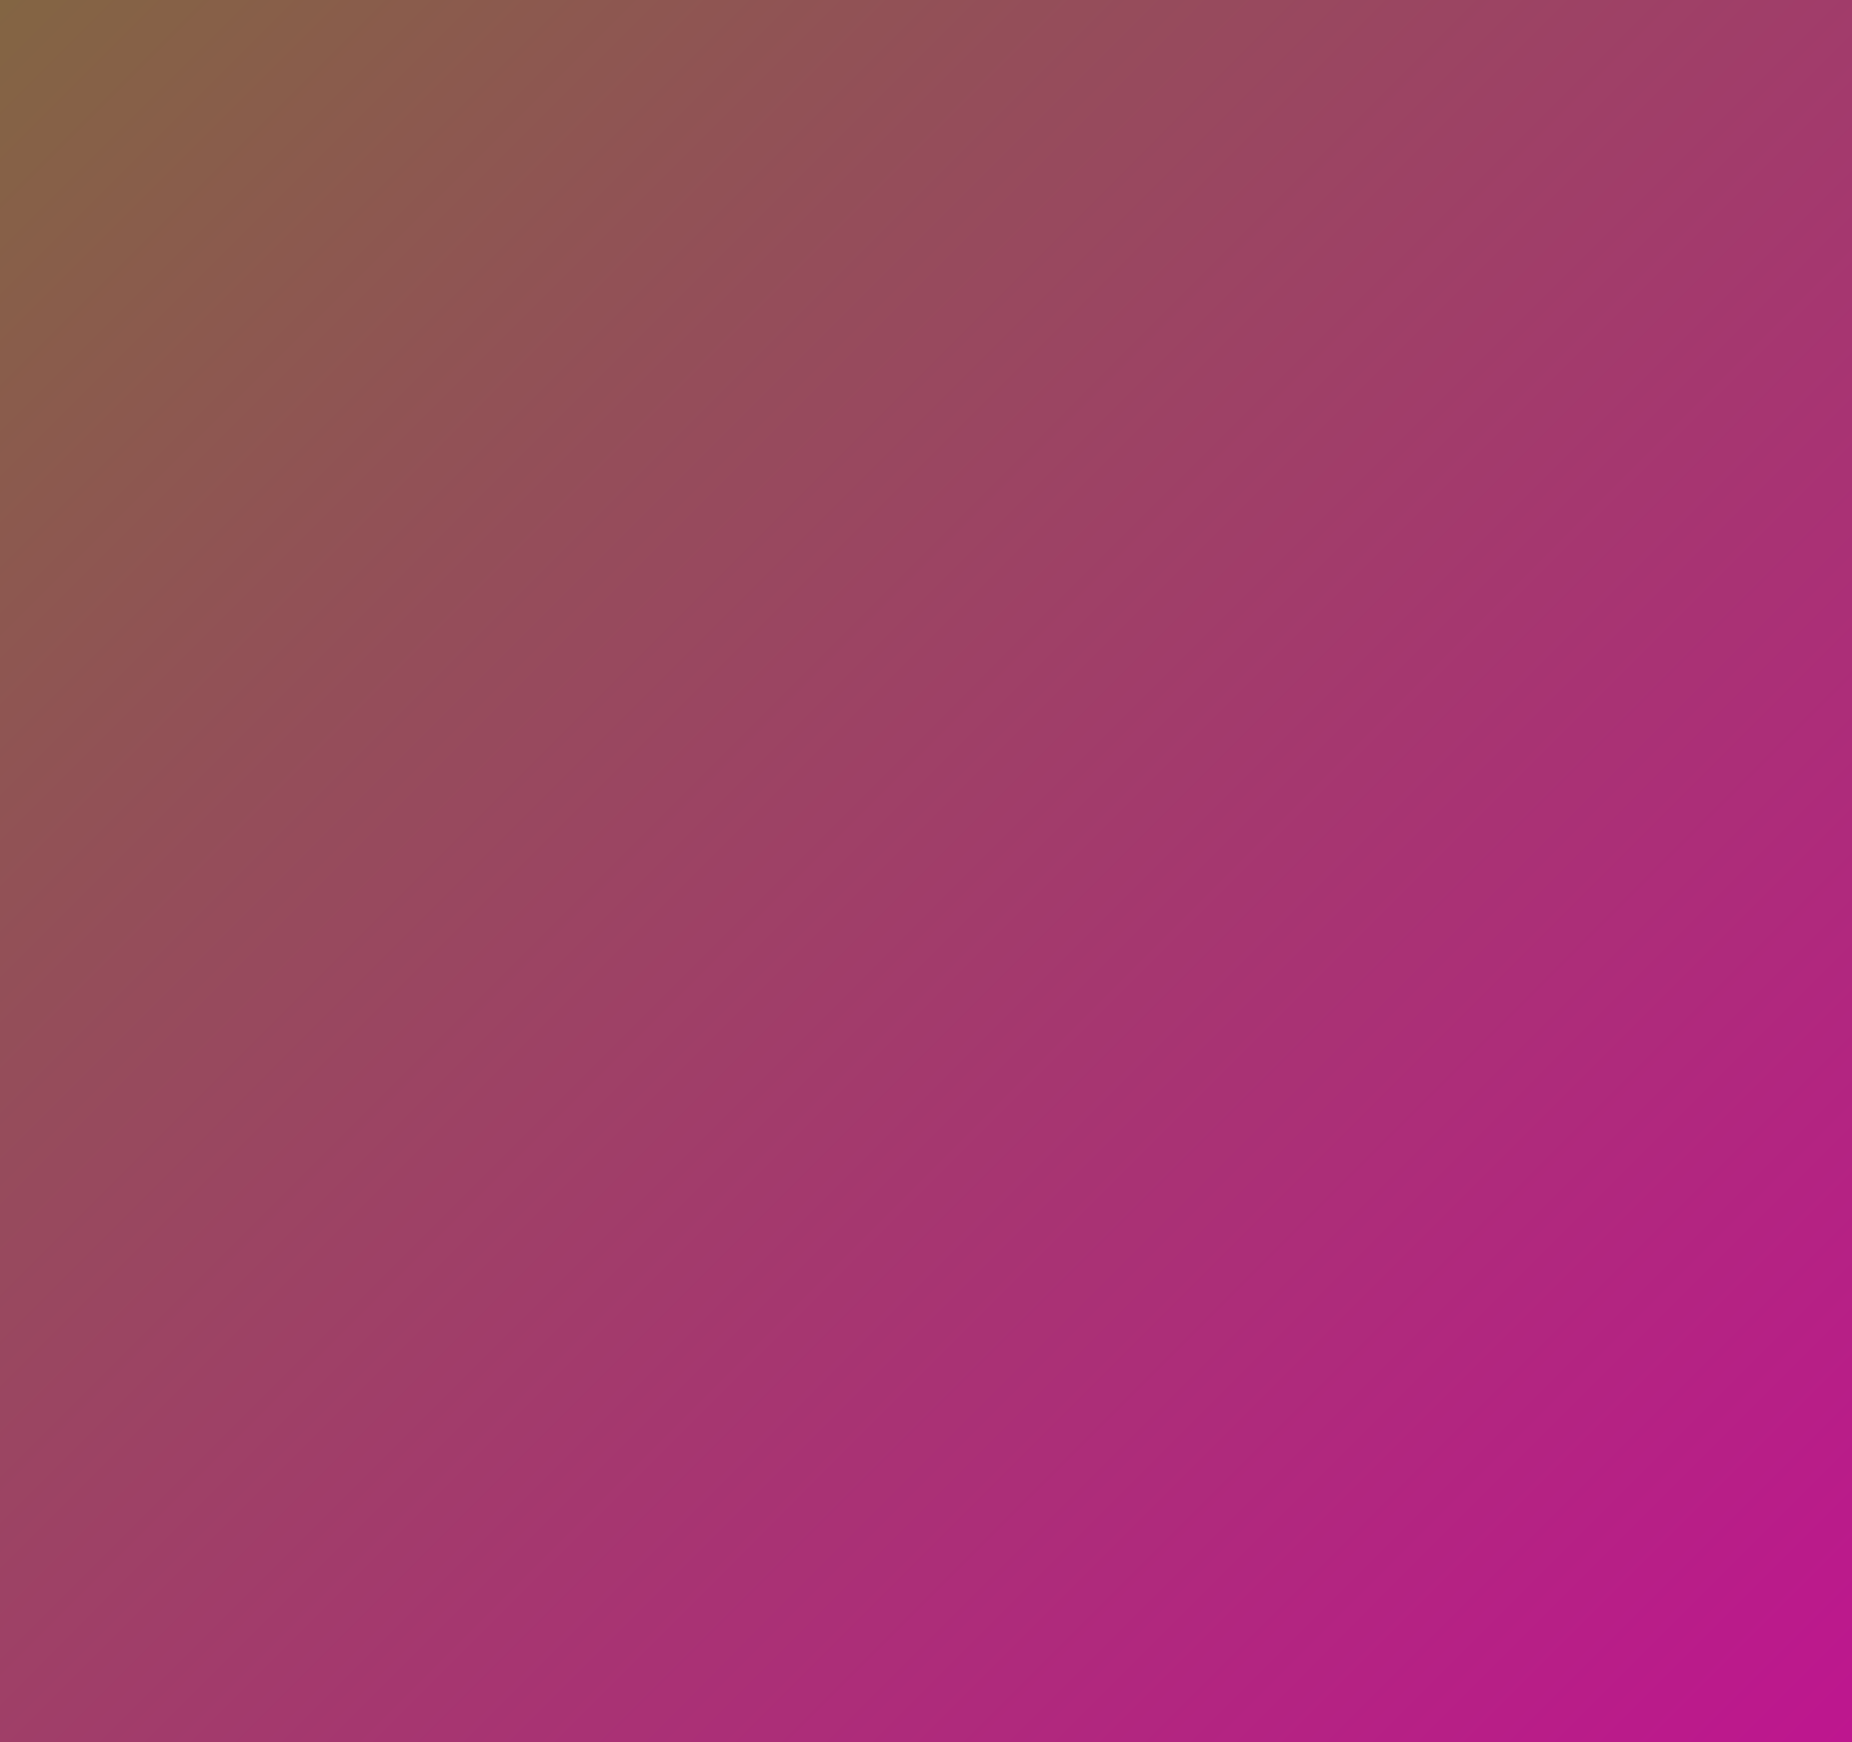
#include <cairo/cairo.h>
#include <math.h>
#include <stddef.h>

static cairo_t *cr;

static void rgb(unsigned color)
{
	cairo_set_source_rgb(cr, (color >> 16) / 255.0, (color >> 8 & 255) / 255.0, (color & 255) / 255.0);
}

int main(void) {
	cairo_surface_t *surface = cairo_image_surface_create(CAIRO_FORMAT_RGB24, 1852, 1742);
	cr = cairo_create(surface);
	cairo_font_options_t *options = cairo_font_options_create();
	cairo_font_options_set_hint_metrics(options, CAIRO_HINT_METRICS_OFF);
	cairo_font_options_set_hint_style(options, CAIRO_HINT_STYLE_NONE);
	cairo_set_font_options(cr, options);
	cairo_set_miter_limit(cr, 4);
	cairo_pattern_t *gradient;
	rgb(0xffffff);
	cairo_paint(cr);
	gradient = cairo_pattern_create_linear(27, -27, 1825, 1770);
	cairo_pattern_add_color_stop_rgba(gradient, 0, 0.514, 0.396, 0.263, 1);
	cairo_pattern_add_color_stop_rgba(gradient, 1, 0.745, 0.086, 0.561, 1);
	cairo_set_source(cr, gradient);
	cairo_pattern_destroy(gradient);
	cairo_rectangle(cr, 0, 0, 1852, 1742);
	cairo_fill(cr);
	cairo_surface_write_to_png(surface, "page.png");
	cairo_font_options_destroy(options);
	cairo_destroy(cr);
	cairo_surface_destroy(surface);
	return 0;
}
